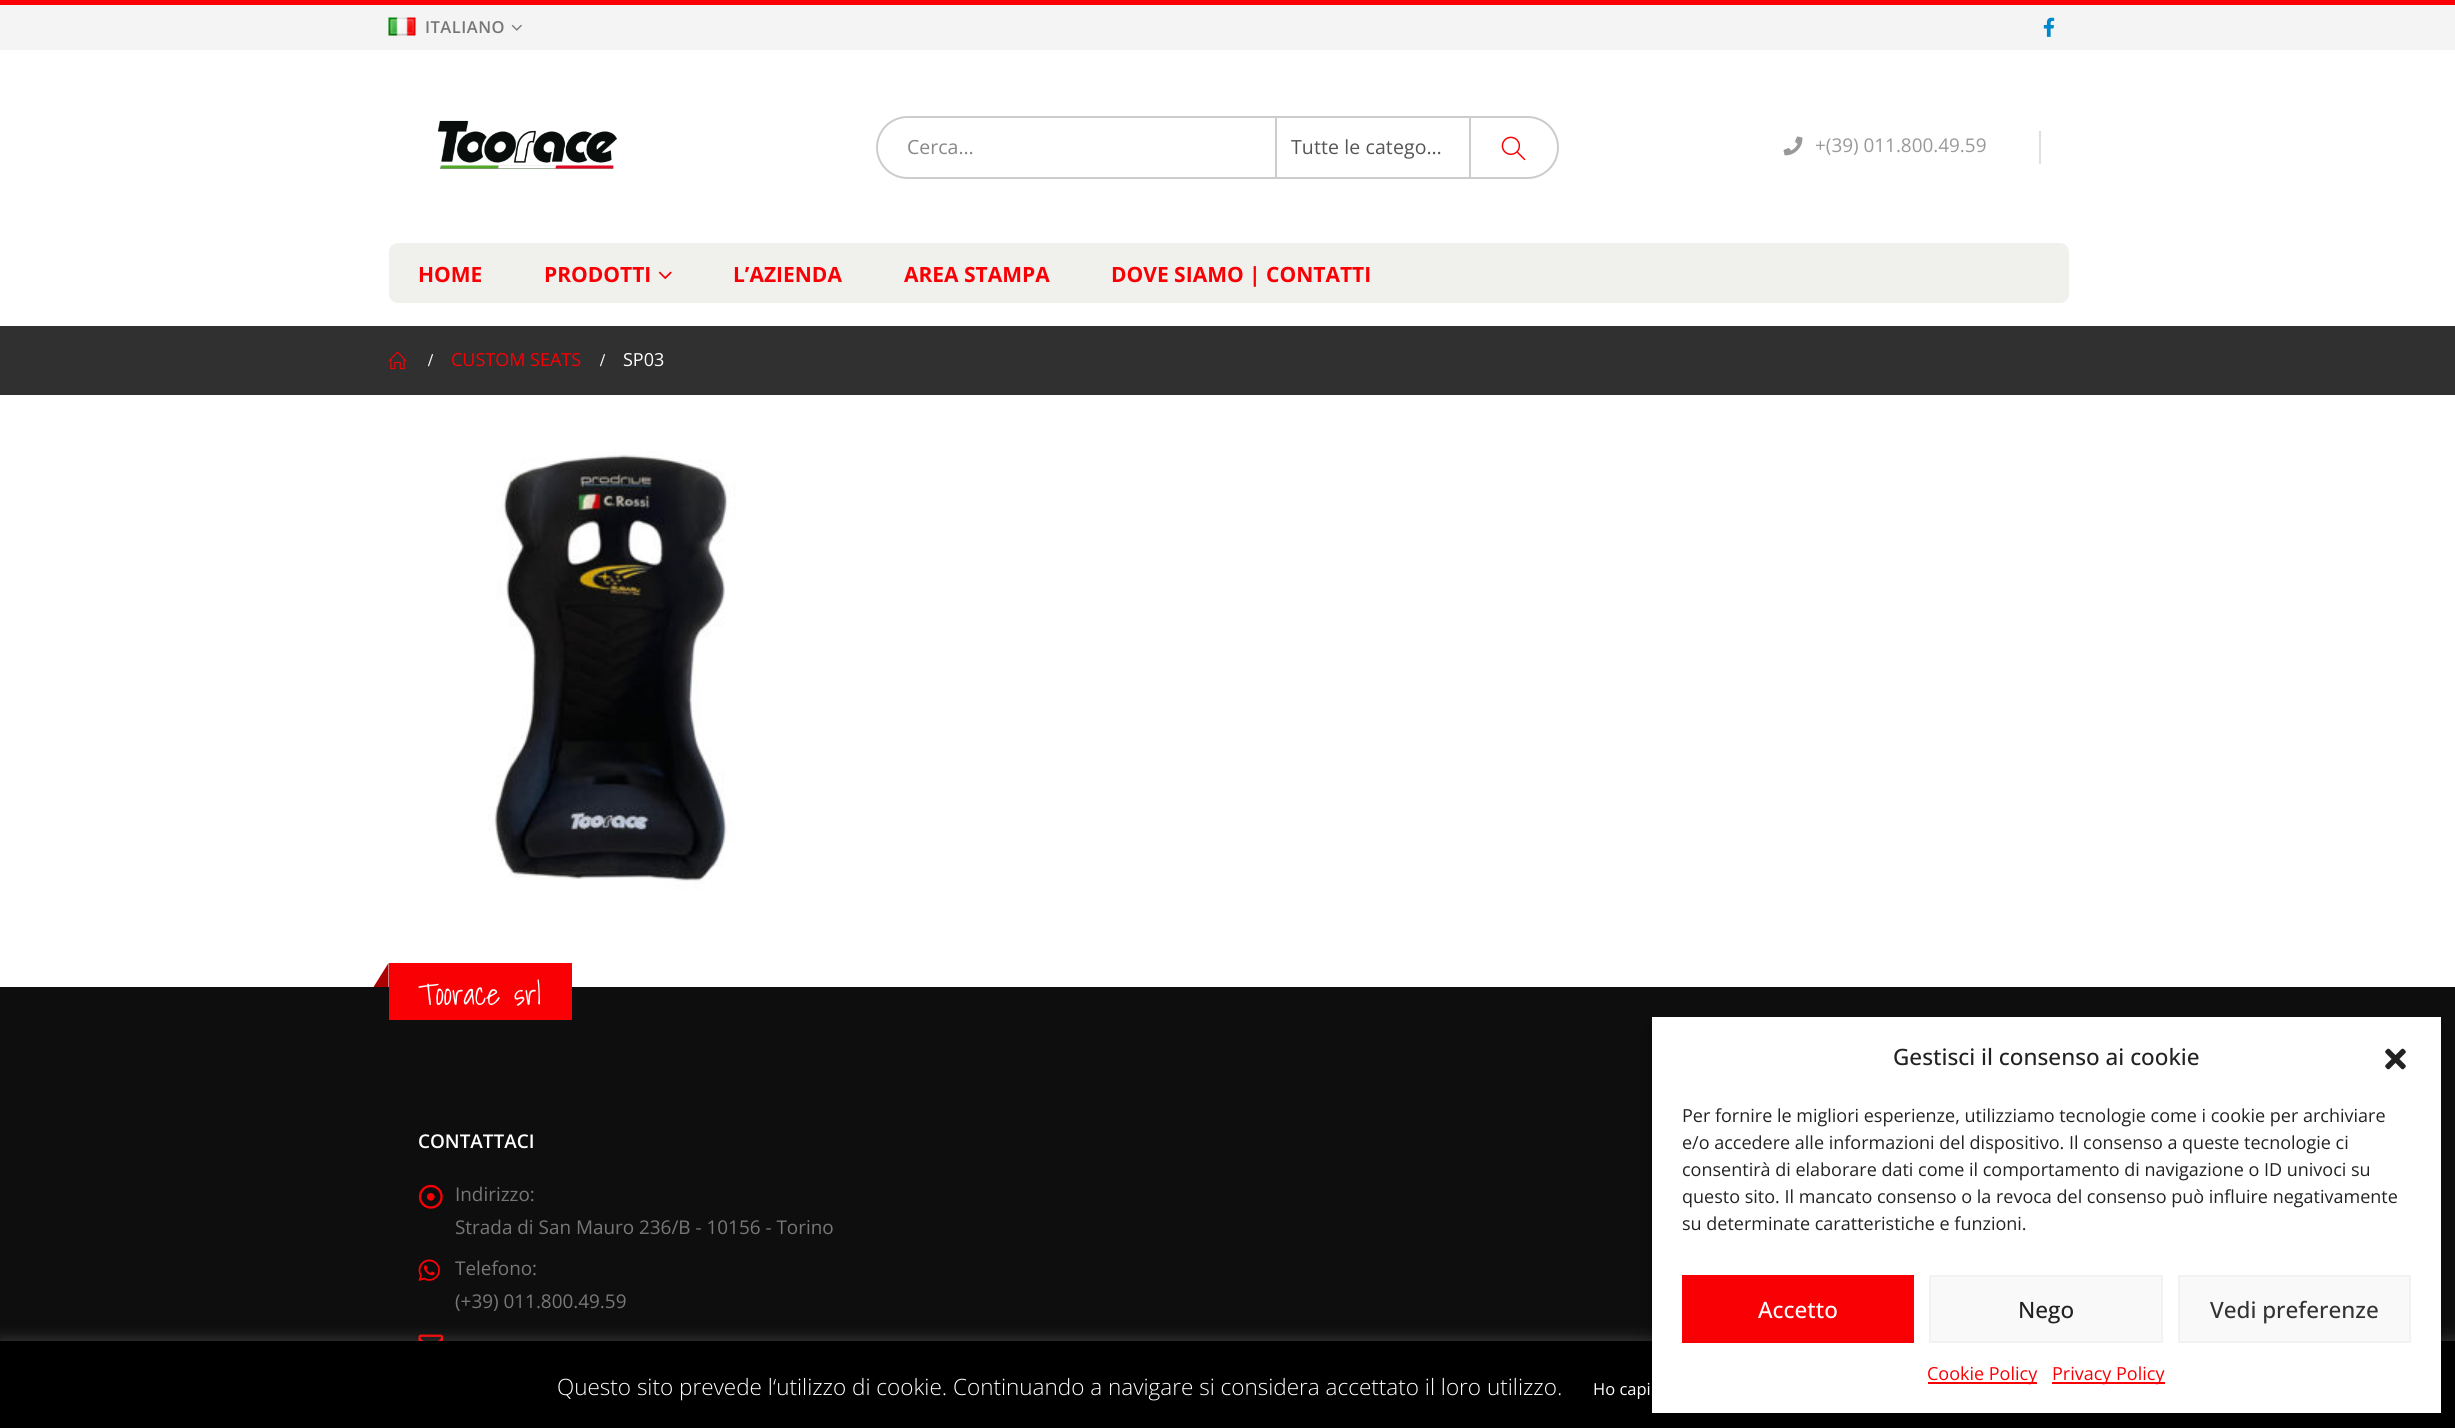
#include <cairo/cairo.h>
#include <math.h>
#include <stddef.h>

typedef struct { double x, y; const char *s; } line_t;
static cairo_t *cr;

static void rgb(unsigned color)
{
	cairo_set_source_rgb(cr, (color >> 16) / 255.0, (color >> 8 & 255) / 255.0, (color & 255) / 255.0);
}

static void tracked(double x, double y, const char *s, double letter, double word)
{
	cairo_move_to(cr, x, y);
	while (*s) {
		char ch[5] = {0};
		int n = 0;
		do ch[n++] = *s++; while ((*s & 0xC0) == 0x80);
		cairo_show_text(cr, ch);
		cairo_rel_move_to(cr, letter + word * (*ch == ' '), 0);
	}
}

static void rrect(double x, double y, double w, double h, double r)
{
	cairo_new_sub_path(cr);
	cairo_arc(cr, x + w - r, y + h - r, r, 0, M_PI / 2);
	cairo_arc(cr, x + r, y + h - r, r, M_PI / 2, M_PI);
	cairo_arc(cr, x + r, y + r, r, M_PI, 1.5 * M_PI);
	cairo_arc(cr, x + w - r, y + r, r, 1.5 * M_PI, 2 * M_PI);
	cairo_close_path(cr);
}

static void soft_shadow(double x, double y, double w, double h, double r, double blur, double alpha)
{
	cairo_push_group_with_content(cr, CAIRO_CONTENT_ALPHA);
	cairo_set_operator(cr, CAIRO_OPERATOR_SOURCE);
	for (int i = 15; i >= -15 && fmin(w, h) + blur * i / 3 > 0; i -= 2) {
		double e = blur * i / 6;
		cairo_set_source_rgba(cr, 0, 0, 0, alpha * erfc((i - 1) / 8.5) / 2);
		rrect(x - e, y - e, w + 2 * e, h + 2 * e, fmax(0, fmin(r + e + blur * .6, fmin(w, h) / 2 + e)));
		cairo_fill(cr);
	}
	cairo_pattern_t *soft = cairo_pop_group(cr);
	cairo_mask(cr, soft);
	cairo_pattern_destroy(soft);
}

static void image(const char *path, double x, double y, double w, double h)
{
	cairo_surface_t *image = cairo_image_surface_create_from_png(path);
	cairo_save(cr);
	cairo_set_source_surface(cr, image, x, y);
	cairo_rectangle(cr, x, y, w, h);
	cairo_fill(cr);
	cairo_restore(cr);
	cairo_surface_destroy(image);
}

int main(void) {
	cairo_surface_t *surface = cairo_image_surface_create(CAIRO_FORMAT_RGB24, 2455, 1428);
	cr = cairo_create(surface);
	cairo_font_options_t *options = cairo_font_options_create();
	cairo_font_options_set_hint_metrics(options, CAIRO_HINT_METRICS_OFF);
	cairo_font_options_set_hint_style(options, CAIRO_HINT_STYLE_NONE);
	cairo_set_font_options(cr, options);
	cairo_set_miter_limit(cr, 4);
	rgb(0xffffff);
	cairo_paint(cr);
	rgb(0xf90004);
	cairo_rectangle(cr, 0, 0, 2455, 5);
	cairo_fill(cr);
	rgb(0xf4f4f4);
	cairo_rectangle(cr, 0, 5, 2455, 45);
	cairo_fill(cr);
	image("img/1.png", 388, 17, 28, 19);
	image("img/2.png", 511, 24, 11, 7);
	image("img/3.png", 2043, 17, 12, 20);
	image("img/4.png", 437, 120, 180, 49);
	rrect(877, 117, 681, 61, 30.5);
	rgb(0xcccccc);
	cairo_stroke(cr);
	cairo_rectangle(cr, 1275, 117, 2, 60);
	cairo_fill(cr);
	cairo_rectangle(cr, 1469, 117, 2, 60);
	cairo_fill(cr);
	image("img/5.png", 1501, 136, 25, 25);
	rgb(0xdde0e2);
	cairo_rectangle(cr, 2039, 131, 2, 33);
	cairo_fill(cr);
	image("img/6.png", 1783, 136, 20, 20);
	rgb(0xf0f0ed);
	rrect(389, 243, 1680, 60, 9);
	cairo_fill(cr);
	image("img/7.png", 658, 271, 14, 9);
	rgb(0x303030);
	cairo_rectangle(cr, 0, 326, 2455, 69);
	cairo_fill(cr);
	image("img/8.png", 388, 351, 19, 19);
	image("img/9.png", 488, 451, 248, 439);
	rgb(0x0e0e0e);
	cairo_rectangle(cr, 0, 987, 2455, 354);
	cairo_fill(cr);
	rgb(0xf90004);
	cairo_rectangle(cr, 389, 963, 183, 57);
	cairo_fill(cr);
	rgb(0xad0003);
	cairo_new_path(cr);
	cairo_move_to(cr, 388.5, 963);
	cairo_line_to(cr, 388.5, 987);
	cairo_line_to(cr, 373.5, 987);
	cairo_close_path(cr);
	cairo_fill(cr);
	image("img/10.png", 418, 1184, 25, 25);
	image("img/11.png", 418, 1259, 22, 22);
	image("img/12.png", 418, 1334, 26, 7);
	rgb(0xacabab);
	soft_shadow(0, 1340, 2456, 87, 0, 7.5, 0.3);
	rgb(0x000000);
	cairo_rectangle(cr, 0, 1341, 2455, 87);
	cairo_fill(cr);
	rgb(0x000000);
	soft_shadow(1652, 1026, 789, 396, 0, 4.5, 0.23);
	soft_shadow(1652, 1032, 789, 396, 0, 15, 0.19);
	rgb(0xffffff);
	cairo_rectangle(cr, 1652, 1017, 789, 396);
	cairo_fill(cr);
	image("img/13.png", 2385, 1048, 21, 22);
	rgb(0xf90004);
	cairo_rectangle(cr, 1682, 1275, 232, 68);
	cairo_fill(cr);
	rgb(0xf9f9f9);
	cairo_rectangle(cr, 1930, 1276, 232, 66);
	cairo_fill_preserve(cr);
	rgb(0xf2f2f2);
	cairo_stroke(cr);
	rgb(0xf9f9f9);
	cairo_rectangle(cr, 2179, 1276, 231, 66);
	cairo_fill_preserve(cr);
	rgb(0xf2f2f2);
	cairo_stroke(cr);
	rgb(0xf90004);
	cairo_rectangle(cr, 1928, 1382, 109, 2);
	cairo_fill(cr);
	cairo_rectangle(cr, 2052, 1382, 113, 2);
	cairo_fill(cr);
	cairo_select_font_face(cr, "Open Sans SemiBold", CAIRO_FONT_SLANT_NORMAL, CAIRO_FONT_WEIGHT_NORMAL);
	cairo_set_font_size(cr, 16.5);
	rgb(0x777777);
	tracked(425, 33, "ITALIANO", 0.5, 0);
	cairo_select_font_face(cr, "Open Sans", CAIRO_FONT_SLANT_NORMAL, CAIRO_FONT_WEIGHT_NORMAL);
	cairo_set_font_size(cr, 19.5);
	rgb(0x888888);
	cairo_move_to(cr, 907, 154);
	cairo_show_text(cr, "Cerca…");
	rgb(0x555555);
	tracked(1291, 154, "Tutte le catego…", 0.1, 0);
	cairo_set_font_size(cr, 18.9);
	rgb(0x999999);
	cairo_move_to(cr, 1815, 152);
	cairo_show_text(cr, "+(39) 011.800.49.59");
	cairo_select_font_face(cr, "Open Sans", CAIRO_FONT_SLANT_NORMAL, CAIRO_FONT_WEIGHT_BOLD);
	cairo_set_font_size(cr, 21);
	rgb(0xf90004);
	{
		static const line_t items[] = {
			{418, 282, "HOME"},
			{544, 282, "PRODOTTI"},
			{733, 282, "L’AZIENDA"},
			{904, 282, "AREA STAMPA"},
			{1111, 282, "DOVE SIAMO | CONTATTI"},
		};
		for (size_t i = 0; i < sizeof items / sizeof *items; i++) {
			cairo_move_to(cr, items[i].x, items[i].y);
			cairo_show_text(cr, items[i].s);
		}
	}
	cairo_select_font_face(cr, "Liberation Serif", CAIRO_FONT_SLANT_NORMAL, CAIRO_FONT_WEIGHT_BOLD);
	cairo_set_font_size(cr, 18);
	rgb(0xffffff);
	cairo_move_to(cr, 428, 366);
	cairo_show_text(cr, "/");
	cairo_select_font_face(cr, "Open Sans", CAIRO_FONT_SLANT_NORMAL, CAIRO_FONT_WEIGHT_NORMAL);
	rgb(0xf90004);
	cairo_move_to(cr, 451, 366);
	cairo_show_text(cr, "CUSTOM SEATS");
	cairo_select_font_face(cr, "Liberation Serif", CAIRO_FONT_SLANT_NORMAL, CAIRO_FONT_WEIGHT_BOLD);
	rgb(0xffffff);
	cairo_move_to(cr, 600, 366);
	cairo_show_text(cr, "/");
	cairo_select_font_face(cr, "Open Sans", CAIRO_FONT_SLANT_NORMAL, CAIRO_FONT_WEIGHT_NORMAL);
	cairo_move_to(cr, 623, 366);
	cairo_show_text(cr, "SP03");
	cairo_select_font_face(cr, "Shadows Into Light Light", CAIRO_FONT_SLANT_NORMAL, CAIRO_FONT_WEIGHT_NORMAL);
	cairo_set_font_size(cr, 30);
	cairo_move_to(cr, 418, 1005);
	cairo_show_text(cr, "Toorace srl");
	cairo_select_font_face(cr, "Open Sans SemiBold", CAIRO_FONT_SLANT_NORMAL, CAIRO_FONT_WEIGHT_NORMAL);
	cairo_set_font_size(cr, 18.9);
	cairo_move_to(cr, 418, 1148);
	cairo_show_text(cr, "CONTATTACI");
	cairo_select_font_face(cr, "Open Sans", CAIRO_FONT_SLANT_NORMAL, CAIRO_FONT_WEIGHT_NORMAL);
	rgb(0x777777);
	{
		static const line_t items[] = {
			{455, 1201, "Indirizzo:"},
			{455, 1234, "Strada di San Mauro 236/B - 10156 - Torino"},
			{455, 1275, "Telefono:"},
			{455, 1308, "(+39) 011.800.49.59"},
		};
		for (size_t i = 0; i < sizeof items / sizeof *items; i++) {
			cairo_move_to(cr, items[i].x, items[i].y);
			cairo_show_text(cr, items[i].s);
		}
	}
	cairo_select_font_face(cr, "Open Sans Medium", CAIRO_FONT_SLANT_NORMAL, CAIRO_FONT_WEIGHT_NORMAL);
	cairo_set_font_size(cr, 22.5);
	rgb(0x222222);
	cairo_move_to(cr, 1893, 1065);
	cairo_show_text(cr, "Gestisci il consenso ai cookie");
	cairo_select_font_face(cr, "Open Sans", CAIRO_FONT_SLANT_NORMAL, CAIRO_FONT_WEIGHT_NORMAL);
	cairo_set_font_size(cr, 18);
	{
		static const line_t items[] = {
			{1682, 1122, "Per fornire le migliori esperienze, utilizziamo tecnologie come i cookie per archiviare"},
			{1682, 1149, "e/o accedere alle informazioni del dispositivo. Il consenso a queste tecnologie ci"},
			{1682, 1176, "consentirà di elaborare dati come il comportamento di navigazione o ID univoci su"},
			{1682, 1203, "questo sito. Il mancato consenso o la revoca del consenso può influire negativamente"},
			{1682, 1230, "su determinate caratteristiche e funzioni."},
		};
		for (size_t i = 0; i < sizeof items / sizeof *items; i++) {
			cairo_move_to(cr, items[i].x, items[i].y);
			cairo_show_text(cr, items[i].s);
		}
	}
	cairo_select_font_face(cr, "Open Sans Medium", CAIRO_FONT_SLANT_NORMAL, CAIRO_FONT_WEIGHT_NORMAL);
	cairo_set_font_size(cr, 22.5);
	rgb(0xffffff);
	cairo_move_to(cr, 1758, 1318);
	cairo_show_text(cr, "Accetto");
	rgb(0x222222);
	cairo_move_to(cr, 2018, 1318);
	cairo_show_text(cr, "Nego");
	rgb(0x333333);
	cairo_move_to(cr, 2210, 1318);
	cairo_show_text(cr, "Vedi preferenze");
	cairo_select_font_face(cr, "Open Sans", CAIRO_FONT_SLANT_NORMAL, CAIRO_FONT_WEIGHT_NORMAL);
	cairo_set_font_size(cr, 18);
	rgb(0xf90004);
	cairo_move_to(cr, 1927, 1380);
	cairo_show_text(cr, "Cookie Policy");
	cairo_move_to(cr, 2052, 1380);
	cairo_show_text(cr, "Privacy Policy");
	cairo_select_font_face(cr, "Open Sans Light", CAIRO_FONT_SLANT_NORMAL, CAIRO_FONT_WEIGHT_NORMAL);
	cairo_set_font_size(cr, 22.5);
	rgb(0xffffff);
	cairo_move_to(cr, 557, 1395);
	cairo_show_text(cr, "Questo sito prevede l‘utilizzo di cookie. Continuando a navigare si considera accettato il loro utilizzo.");
	cairo_select_font_face(cr, "Open Sans", CAIRO_FONT_SLANT_NORMAL, CAIRO_FONT_WEIGHT_NORMAL);
	cairo_set_font_size(cr, 16.5);
	cairo_move_to(cr, 1593, 1395);
	cairo_show_text(cr, "Ho capi");
	cairo_surface_write_to_png(surface, "page.png");
	cairo_font_options_destroy(options);
	cairo_destroy(cr);
	cairo_surface_destroy(surface);
	return 0;
}
